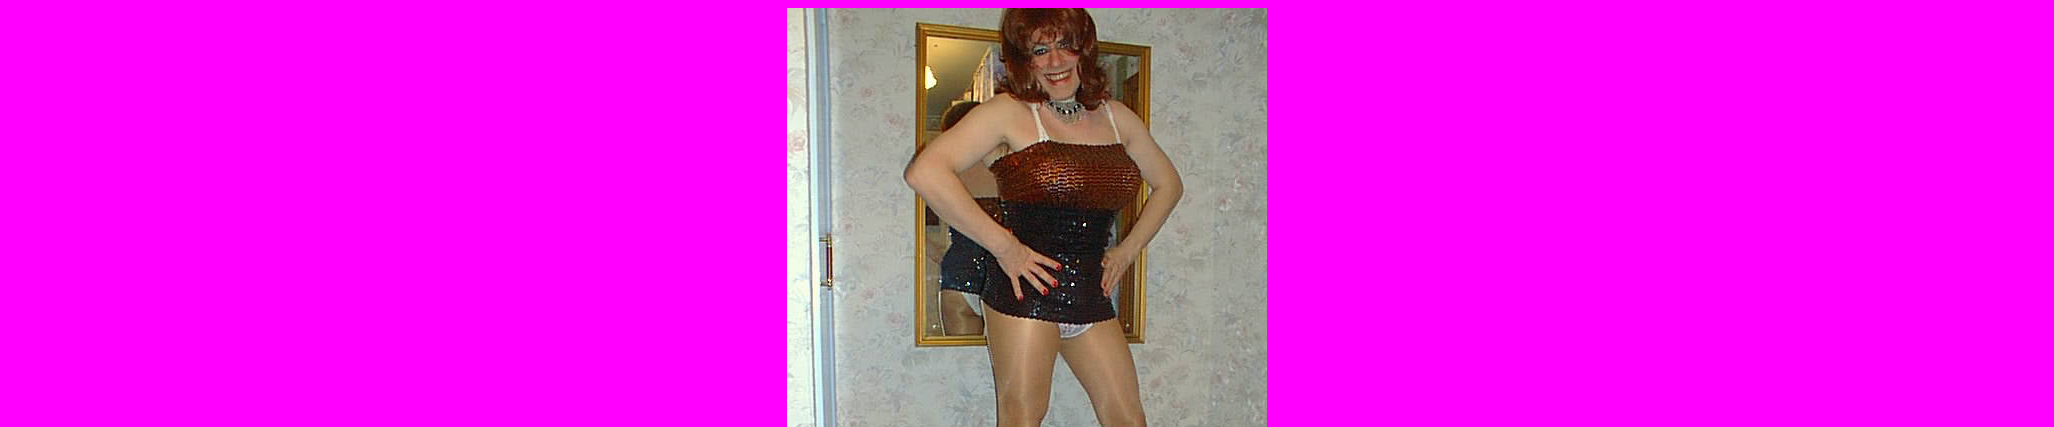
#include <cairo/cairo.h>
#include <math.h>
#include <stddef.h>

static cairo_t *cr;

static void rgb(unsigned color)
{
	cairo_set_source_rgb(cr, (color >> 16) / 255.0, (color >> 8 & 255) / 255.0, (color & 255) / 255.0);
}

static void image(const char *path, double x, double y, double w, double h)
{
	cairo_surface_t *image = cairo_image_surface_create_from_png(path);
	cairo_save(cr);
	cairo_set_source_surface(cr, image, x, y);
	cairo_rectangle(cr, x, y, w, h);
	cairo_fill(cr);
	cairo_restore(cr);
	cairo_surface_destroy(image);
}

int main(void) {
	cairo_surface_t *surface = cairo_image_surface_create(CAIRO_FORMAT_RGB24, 2054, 427);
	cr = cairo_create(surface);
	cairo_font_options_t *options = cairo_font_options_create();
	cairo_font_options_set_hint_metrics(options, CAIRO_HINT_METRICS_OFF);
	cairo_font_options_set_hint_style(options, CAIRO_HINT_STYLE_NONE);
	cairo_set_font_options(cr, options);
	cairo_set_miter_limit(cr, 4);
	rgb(0xff00ff);
	cairo_paint(cr);
	image("img/1.png", 787, 8, 480, 419);
	cairo_surface_write_to_png(surface, "page.png");
	cairo_font_options_destroy(options);
	cairo_destroy(cr);
	cairo_surface_destroy(surface);
	return 0;
}
